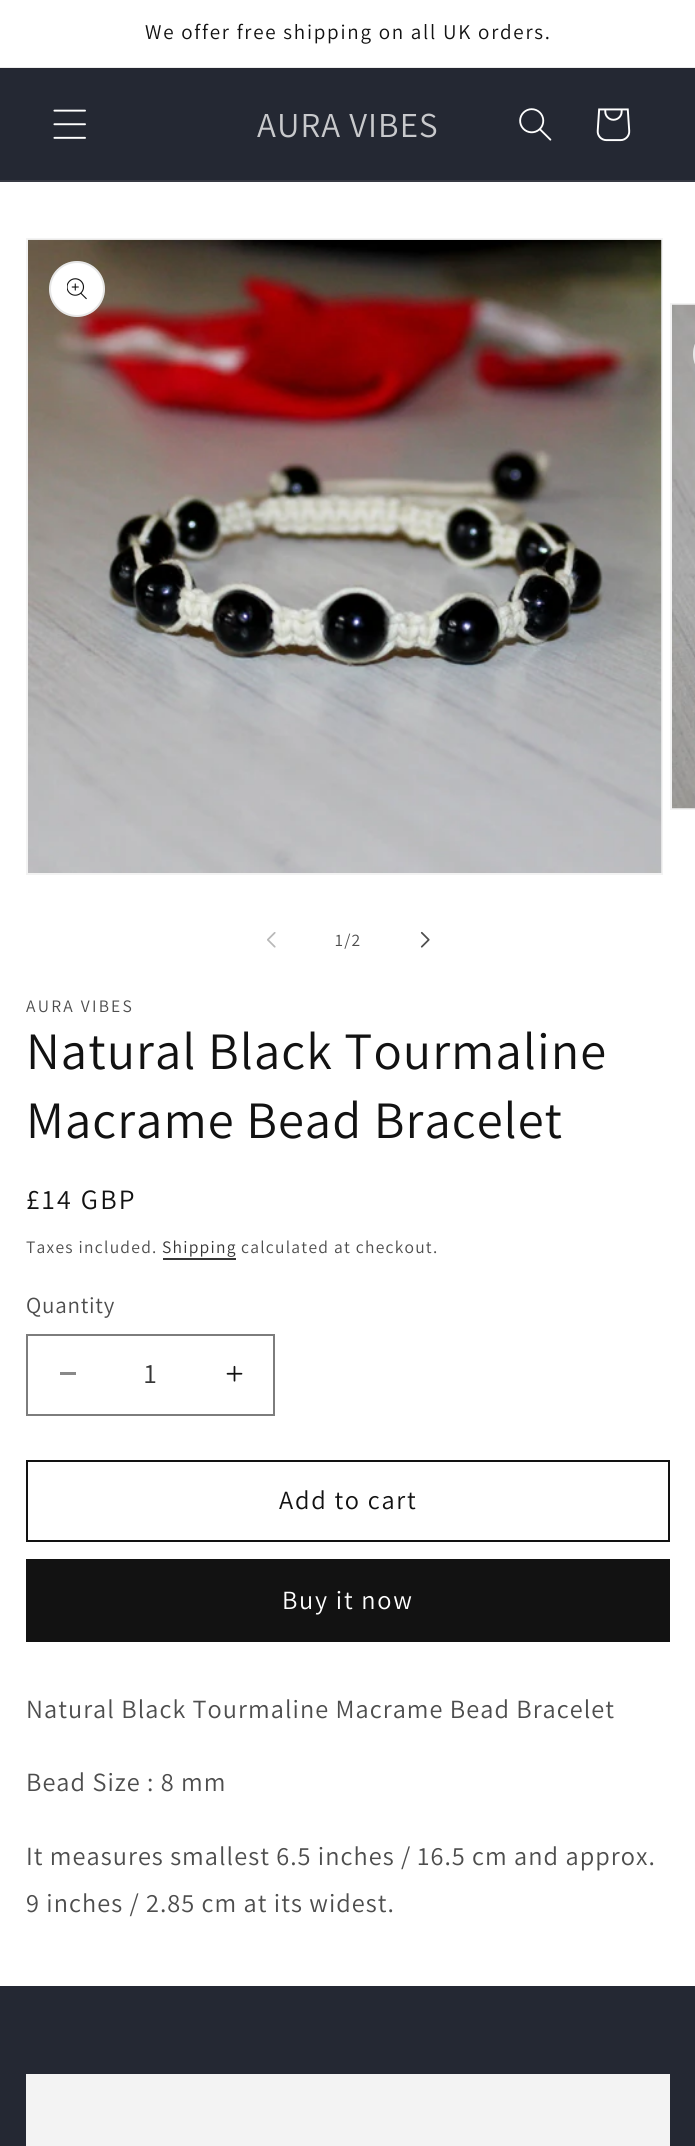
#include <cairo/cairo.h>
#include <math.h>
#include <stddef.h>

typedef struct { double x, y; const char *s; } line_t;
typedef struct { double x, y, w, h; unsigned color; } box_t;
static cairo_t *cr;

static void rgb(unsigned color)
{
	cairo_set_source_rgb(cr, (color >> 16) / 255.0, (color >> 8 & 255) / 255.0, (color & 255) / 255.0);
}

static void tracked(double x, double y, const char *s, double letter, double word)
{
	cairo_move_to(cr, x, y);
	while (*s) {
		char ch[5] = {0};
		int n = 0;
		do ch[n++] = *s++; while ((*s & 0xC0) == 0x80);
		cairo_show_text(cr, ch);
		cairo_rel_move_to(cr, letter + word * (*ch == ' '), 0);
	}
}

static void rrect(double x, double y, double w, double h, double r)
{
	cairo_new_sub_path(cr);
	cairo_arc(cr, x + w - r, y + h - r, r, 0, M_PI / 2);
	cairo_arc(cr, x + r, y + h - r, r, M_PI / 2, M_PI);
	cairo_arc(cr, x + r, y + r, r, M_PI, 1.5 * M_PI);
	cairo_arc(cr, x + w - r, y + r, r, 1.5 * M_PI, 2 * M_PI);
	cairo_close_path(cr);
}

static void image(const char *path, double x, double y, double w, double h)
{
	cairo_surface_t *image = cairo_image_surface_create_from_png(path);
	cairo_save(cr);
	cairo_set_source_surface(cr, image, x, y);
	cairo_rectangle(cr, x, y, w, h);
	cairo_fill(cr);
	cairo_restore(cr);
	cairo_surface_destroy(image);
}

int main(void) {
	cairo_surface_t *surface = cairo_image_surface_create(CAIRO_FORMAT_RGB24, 695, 2146);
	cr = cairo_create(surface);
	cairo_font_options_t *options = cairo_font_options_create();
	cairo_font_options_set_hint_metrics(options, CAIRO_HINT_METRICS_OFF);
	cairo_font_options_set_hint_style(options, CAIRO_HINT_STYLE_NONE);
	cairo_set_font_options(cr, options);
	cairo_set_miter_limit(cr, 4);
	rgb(0xffffff);
	cairo_paint(cr);
	{
		static const box_t items[] = {
			{0, 67, 695, 1, 0xececec},
			{0, 69, 695, 111, 0x242833},
			{0, 68, 695, 1, 0x232630},
			{0, 180, 695, 2, 0x363943},
		};
		for (size_t i = 0; i < sizeof items / sizeof *items; i++) {
			rgb(items[i].color);
			cairo_rectangle(cr, items[i].x, items[i].y, items[i].w, items[i].h);
			cairo_fill(cr);
		}
	}
	image("img/1.png", 53, 109, 33, 30);
	image("img/2.png", 519, 108, 33, 33);
	image("img/3.png", 596, 108, 35, 34);
	cairo_rectangle(cr, 27, 239, 635, 635);
	rgb(0xf3f3f3);
	cairo_stroke(cr);
	image("img/4.png", 28, 239, 634, 634);
	rgb(0xffffff);
	cairo_arc(cr, 77, 289, 28, 0, 2 * M_PI);
	cairo_fill(cr);
	cairo_arc(cr, 77, 289, 27, 0, 2 * M_PI);
	cairo_set_source_rgba(cr, 0.071, 0.071, 0.071, 0.1);
	cairo_stroke(cr);
	image("img/5.png", 67, 278, 20, 22);
	cairo_rectangle(cr, 671, 304, 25, 505);
	rgb(0xf3f3f3);
	cairo_stroke(cr);
	image("img/6.png", 672, 304, 23, 505);
	rgb(0xffffff);
	cairo_new_path(cr);
	cairo_move_to(cr, 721, 326);
	cairo_line_to(cr, 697, 326);
	cairo_line_to(cr, 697, 382);
	cairo_line_to(cr, 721, 382);
	cairo_curve_to(cr, 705.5, 382, 693, 369.5, 693, 354);
	cairo_curve_to(cr, 693, 338.5, 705.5, 326, 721, 326);
	cairo_close_path(cr);
	cairo_fill(cr);
	rrect(694, 327, 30, 54, 27);
	cairo_set_source_rgba(cr, 0.071, 0.071, 0.071, 0.1);
	cairo_stroke(cr);
	image("img/7.png", 267, 932, 9, 16);
	image("img/8.png", 420, 931, 10, 17);
	rgb(0x363636);
	cairo_rectangle(cr, 163, 1258, 73, 2);
	cairo_fill(cr);
	rgb(0x898989);
	cairo_rectangle(cr, 60, 1372, 16, 3);
	cairo_fill(cr);
	image("img/9.png", 226, 1365, 17, 17);
	cairo_rectangle(cr, 27, 1335, 247, 80);
	rgb(0x7d7d7d);
	cairo_stroke(cr);
	cairo_rectangle(cr, 27, 1461, 642, 80);
	rgb(0x121212);
	cairo_stroke(cr);
	{
		static const box_t items[] = {
			{26, 1559, 644, 83, 0x121212},
			{0, 1986, 695, 160, 0x242833},
			{26, 2074, 644, 72, 0xf3f3f3},
		};
		for (size_t i = 0; i < sizeof items / sizeof *items; i++) {
			rgb(items[i].color);
			cairo_rectangle(cr, items[i].x, items[i].y, items[i].w, items[i].h);
			cairo_fill(cr);
		}
	}
	cairo_select_font_face(cr, "Assistant", CAIRO_FONT_SLANT_NORMAL, CAIRO_FONT_WEIGHT_NORMAL);
	cairo_set_font_size(cr, 21);
	rgb(0x121212);
	tracked(145, 39, "We offer free shipping on all UK orders.", 1.75, 0);
	cairo_set_font_size(cr, 35);
	rgb(0xc8c9cc);
	tracked(257, 137, "AURA VIBES", 1.05, 0);
	cairo_set_font_size(cr, 17.5);
	rgb(0x4d4d4d);
	tracked(335, 946, "1/2", 1.25, 0);
	tracked(26, 1012, "AURA VIBES", 2.25, 0);
	cairo_set_font_size(cr, 52.5);
	rgb(0x121212);
	tracked(26, 1069, "Natural Black Tourmaline", 1.05, 0);
	tracked(26, 1138, "Macrame Bead Bracelet", 1.05, 0);
	cairo_set_font_size(cr, 28);
	tracked(26, 1209, "£14 GBP", 2.25, 0);
	cairo_set_font_size(cr, 17.5);
	rgb(0x4d4d4d);
	tracked(26, 1253, "Taxes included.", 1.25, 0);
	rgb(0x363636);
	tracked(162, 1253, "Shipping", 1.25, 0);
	rgb(0x4d4d4d);
	tracked(241, 1253, "calculated at checkout.", 1.25, 0);
	cairo_set_font_size(cr, 23);
	tracked(26, 1313, "Quantity", 0.75, 0);
	cairo_set_font_size(cr, 28);
	rgb(0x363636);
	cairo_move_to(cr, 144, 1383);
	cairo_show_text(cr, "1");
	cairo_set_font_size(cr, 26.25);
	rgb(0x121212);
	tracked(279, 1509, "Add to cart", 1.75, 0);
	rgb(0xffffff);
	tracked(282, 1609, "Buy it now", 1.75, 0);
	rgb(0x4d4d4d);
	{
		static const line_t items[] = {
			{26, 1718, "Natural Black Tourmaline Macrame Bead Bracelet"},
			{26, 1791, "Bead Size : 8 mm"},
			{26, 1865, "It measures smallest 6.5 inches / 16.5 cm and approx."},
			{26, 1912, "9 inches / 2.85 cm at its widest."},
		};
		for (size_t i = 0; i < sizeof items / sizeof *items; i++) {
			tracked(items[i].x, items[i].y, items[i].s, 1.05, 0);
		}
	}
	cairo_surface_write_to_png(surface, "page.png");
	cairo_font_options_destroy(options);
	cairo_destroy(cr);
	cairo_surface_destroy(surface);
	return 0;
}
